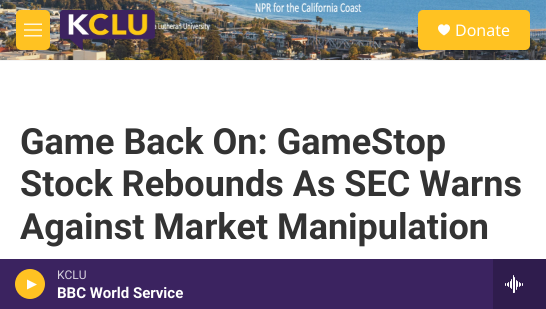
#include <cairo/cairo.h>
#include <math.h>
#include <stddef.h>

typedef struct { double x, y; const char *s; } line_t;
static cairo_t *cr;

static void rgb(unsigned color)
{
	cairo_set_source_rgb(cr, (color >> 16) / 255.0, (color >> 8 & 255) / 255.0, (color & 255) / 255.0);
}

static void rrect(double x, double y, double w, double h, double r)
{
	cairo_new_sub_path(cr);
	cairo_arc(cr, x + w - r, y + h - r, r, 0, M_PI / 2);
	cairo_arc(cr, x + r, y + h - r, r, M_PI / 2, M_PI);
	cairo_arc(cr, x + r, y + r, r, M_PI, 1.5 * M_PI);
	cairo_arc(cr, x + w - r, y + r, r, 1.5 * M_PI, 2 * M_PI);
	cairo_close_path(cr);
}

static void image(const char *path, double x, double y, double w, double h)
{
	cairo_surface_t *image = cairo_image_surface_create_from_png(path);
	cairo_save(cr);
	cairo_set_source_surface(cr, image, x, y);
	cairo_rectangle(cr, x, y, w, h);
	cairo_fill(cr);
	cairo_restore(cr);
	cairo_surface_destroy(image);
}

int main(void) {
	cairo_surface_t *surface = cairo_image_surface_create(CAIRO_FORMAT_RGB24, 546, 309);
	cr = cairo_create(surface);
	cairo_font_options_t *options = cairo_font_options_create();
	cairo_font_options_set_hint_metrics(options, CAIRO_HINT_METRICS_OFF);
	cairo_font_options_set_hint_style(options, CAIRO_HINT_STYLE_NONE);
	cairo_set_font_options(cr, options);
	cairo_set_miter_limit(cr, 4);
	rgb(0xffffff);
	cairo_paint(cr);
	rgb(0xf5f5f5);
	cairo_rectangle(cr, 0, 60, 546, 1);
	cairo_fill(cr);
	image("img/1.png", 0, 0, 546, 60);
	rgb(0xffc222);
	rrect(16, 10, 34, 40, 5);
	cairo_fill(cr);
	image("img/2.png", 24, 23, 18, 14);
	image("img/3.png", 60, 10, 96, 40);
	rrect(418, 10, 112, 40, 5);
	cairo_fill(cr);
	rgb(0xffffff);
	cairo_new_path(cr);
	cairo_move_to(cr, 444, 26);
	cairo_curve_to(cr, 442, 21, 431.5, 28, 444, 35.5);
	cairo_curve_to(cr, 456.5, 28, 446, 21, 444, 26);
	cairo_close_path(cr);
	cairo_fill(cr);
	rgb(0x3b2360);
	cairo_rectangle(cr, 0, 259, 493, 50);
	cairo_fill(cr);
	rgb(0xffc222);
	cairo_arc(cr, 30, 284, 15, 0, 2 * M_PI);
	cairo_fill(cr);
	rgb(0xffffff);
	cairo_new_path(cr);
	cairo_move_to(cr, 27, 279.5);
	cairo_line_to(cr, 37, 284.5);
	cairo_line_to(cr, 27, 289.5);
	cairo_close_path(cr);
	cairo_fill(cr);
	rgb(0x2f1c4d);
	cairo_rectangle(cr, 493, 259, 53, 50);
	cairo_fill(cr);
	image("img/4.png", 505, 275, 18, 18);
	cairo_select_font_face(cr, "Noto Sans", CAIRO_FONT_SLANT_NORMAL, CAIRO_FONT_WEIGHT_NORMAL);
	cairo_set_font_size(cr, 16);
	rgb(0xffffff);
	cairo_move_to(cr, 455, 36);
	cairo_show_text(cr, "Donate");
	cairo_select_font_face(cr, "Roboto", CAIRO_FONT_SLANT_NORMAL, CAIRO_FONT_WEIGHT_NORMAL);
	cairo_set_font_size(cr, 12);
	rgb(0xd8d3df);
	cairo_move_to(cr, 57, 279);
	cairo_show_text(cr, "KCLU");
	cairo_select_font_face(cr, "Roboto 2", CAIRO_FONT_SLANT_NORMAL, CAIRO_FONT_WEIGHT_BOLD);
	cairo_set_font_size(cr, 15);
	rgb(0xffffff);
	cairo_move_to(cr, 57, 298);
	cairo_show_text(cr, "BBC World Service");
	cairo_select_font_face(cr, "Roboto", CAIRO_FONT_SLANT_NORMAL, CAIRO_FONT_WEIGHT_BOLD);
	cairo_set_font_size(cr, 36);
	rgb(0x333333);
	{
		static const line_t items[] = {
			{20, 154, "Game Back On: GameStop"},
			{20, 196, "Stock Rebounds As SEC Warns"},
			{20, 239, "Against Market Manipulation"},
		};
		for (size_t i = 0; i < sizeof items / sizeof *items; i++) {
			cairo_move_to(cr, items[i].x, items[i].y);
			cairo_show_text(cr, items[i].s);
		}
	}
	cairo_surface_write_to_png(surface, "page.png");
	cairo_font_options_destroy(options);
	cairo_destroy(cr);
	cairo_surface_destroy(surface);
	return 0;
}
